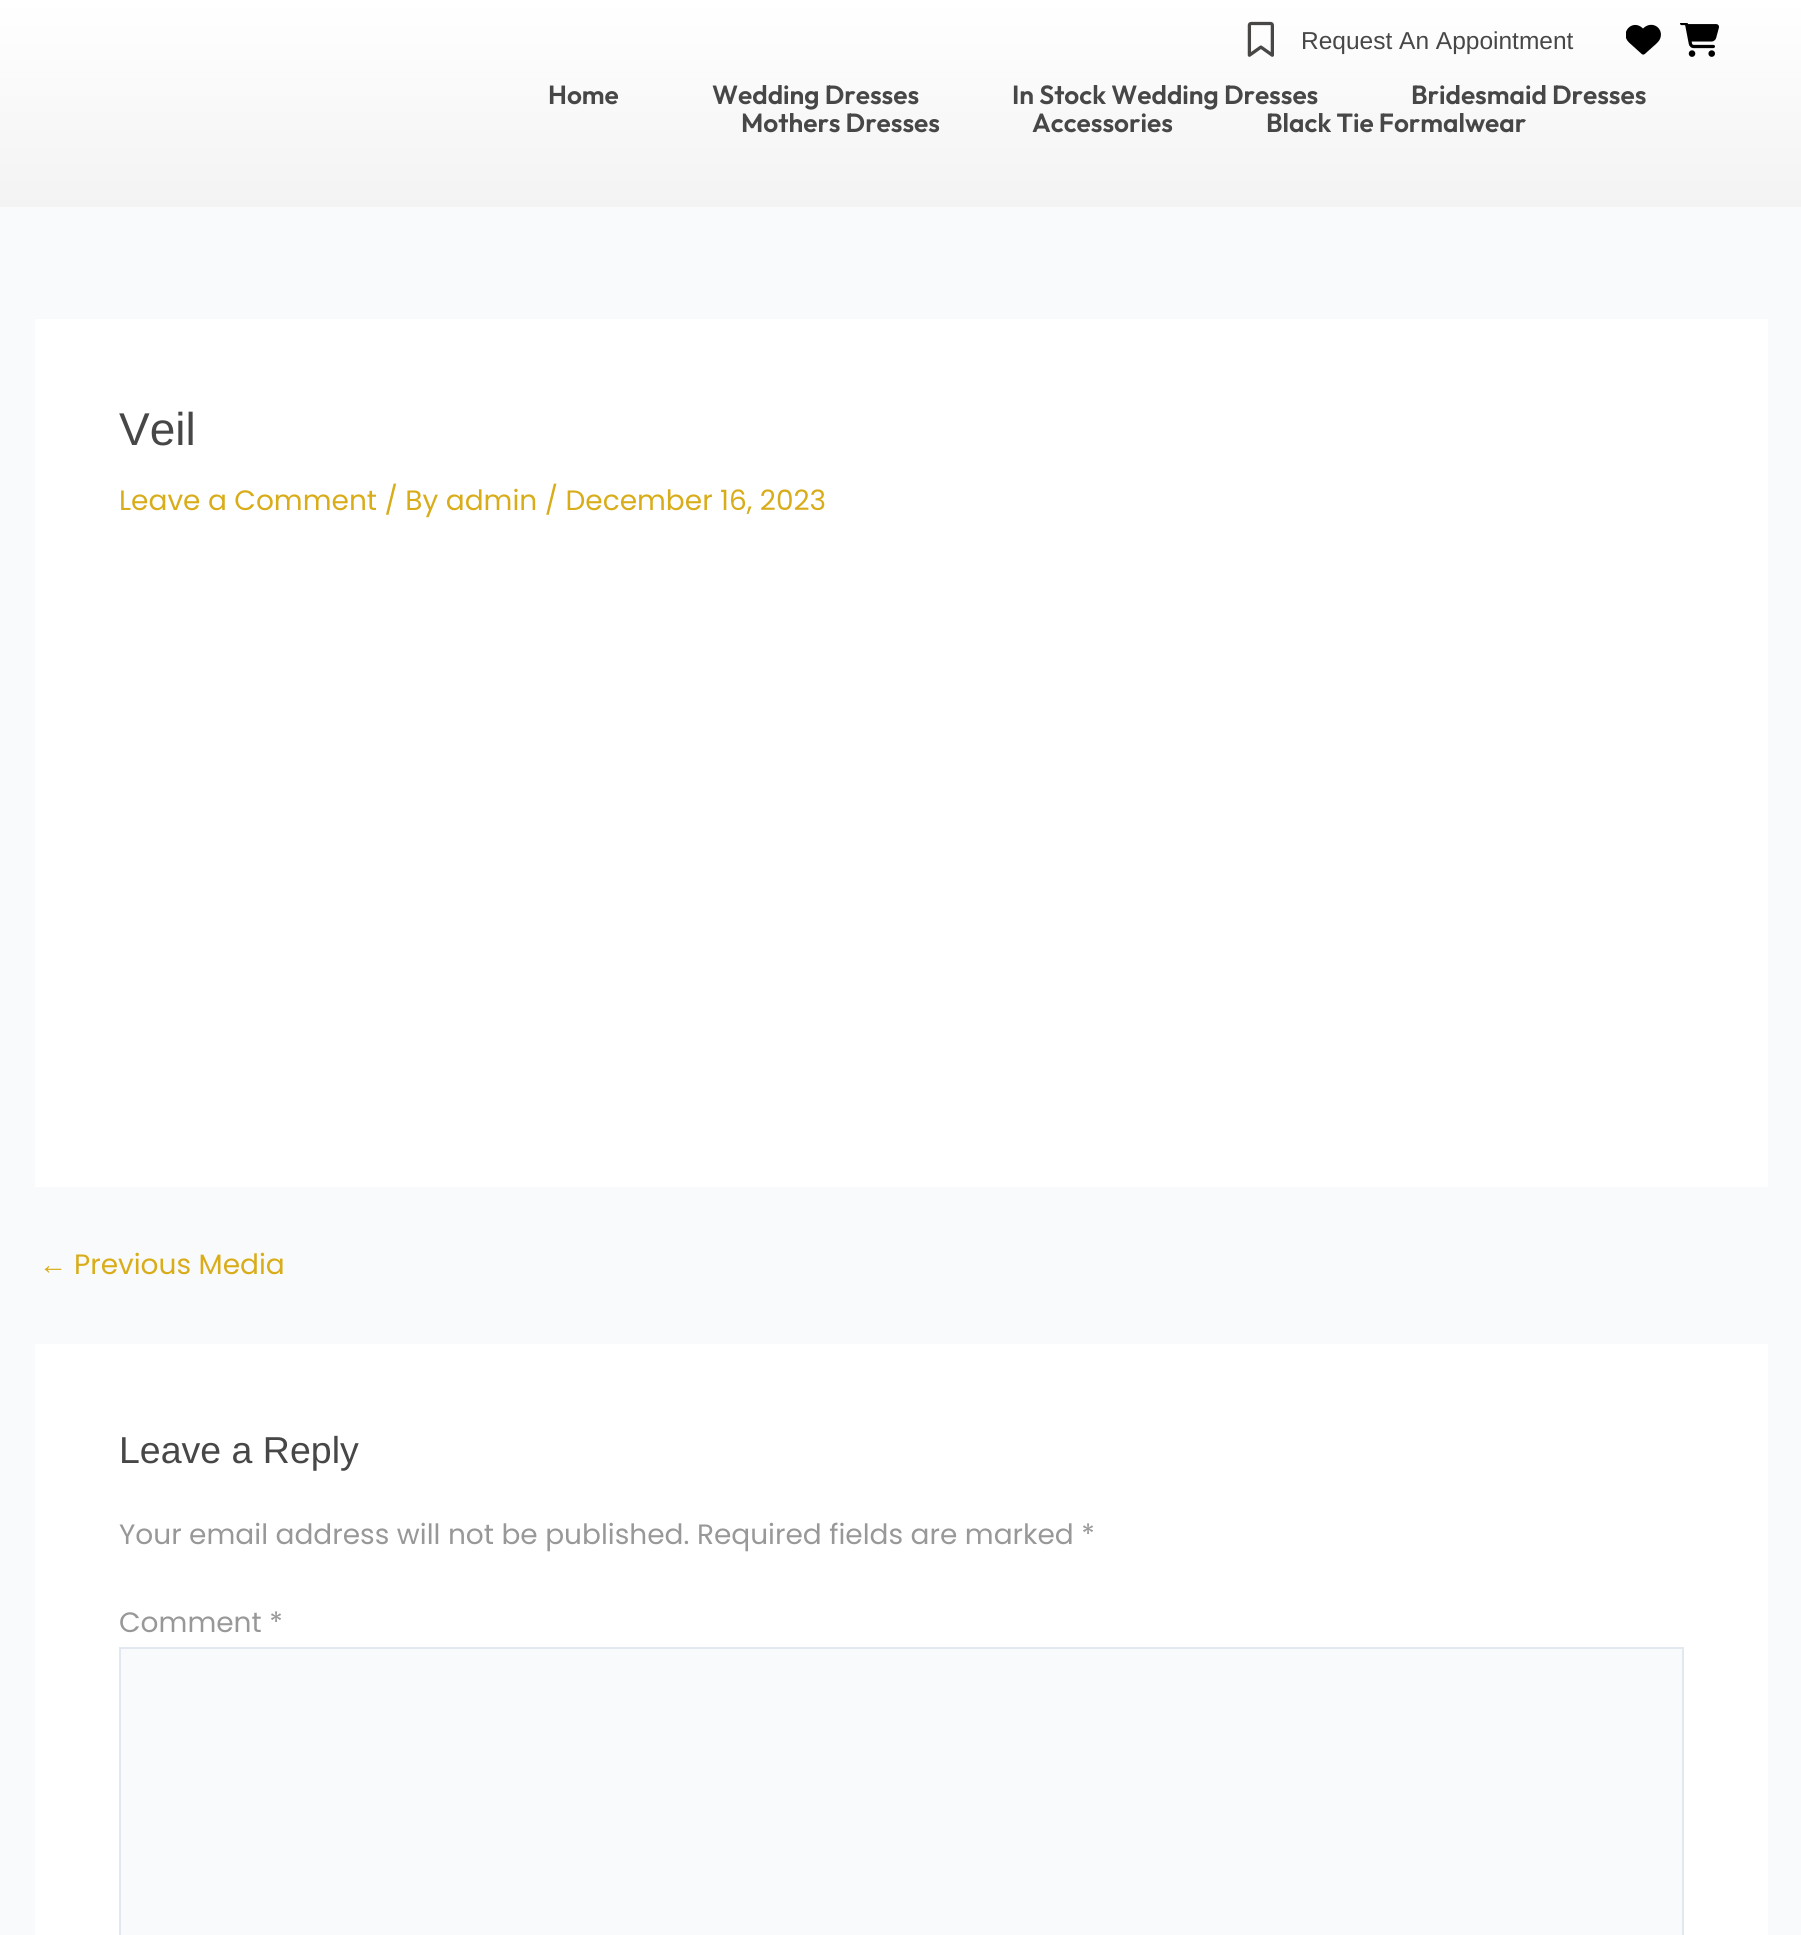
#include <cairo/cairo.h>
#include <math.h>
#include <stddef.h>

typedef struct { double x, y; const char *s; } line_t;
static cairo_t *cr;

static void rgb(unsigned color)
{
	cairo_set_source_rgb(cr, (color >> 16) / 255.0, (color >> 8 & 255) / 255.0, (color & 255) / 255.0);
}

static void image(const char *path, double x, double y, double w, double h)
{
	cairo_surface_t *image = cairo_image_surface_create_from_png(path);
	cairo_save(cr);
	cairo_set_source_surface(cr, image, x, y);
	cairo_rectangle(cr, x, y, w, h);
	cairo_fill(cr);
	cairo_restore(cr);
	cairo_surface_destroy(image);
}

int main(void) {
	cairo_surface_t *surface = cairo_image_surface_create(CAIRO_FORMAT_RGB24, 1801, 1935);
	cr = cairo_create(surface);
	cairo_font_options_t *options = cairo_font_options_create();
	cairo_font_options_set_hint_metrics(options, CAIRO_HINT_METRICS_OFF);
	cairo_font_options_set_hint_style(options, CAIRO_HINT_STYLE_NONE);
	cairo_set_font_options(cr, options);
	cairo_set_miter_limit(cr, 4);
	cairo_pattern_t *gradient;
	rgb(0xf9fafb);
	cairo_paint(cr);
	gradient = cairo_pattern_create_linear(901, 0, 901, 207);
	cairo_pattern_add_color_stop_rgba(gradient, 0, 1, 1, 1, 1);
	cairo_pattern_add_color_stop_rgba(gradient, 1, 0.953, 0.953, 0.953, 1);
	cairo_set_source(cr, gradient);
	cairo_pattern_destroy(gradient);
	cairo_rectangle(cr, 0, 0, 1801, 207);
	cairo_fill(cr);
	image("img/1.png", 1247, 21, 27, 36);
	cairo_save(cr);
	cairo_rectangle(cr, 1626, 23, 107, 35);
	cairo_clip(cr);
	rgb(0x000000);
	cairo_new_path(cr);
	cairo_move_to(cr, 1629, 42.5);
	cairo_line_to(cr, 1641.5, 54);
	cairo_line_to(cr, 1629, 42.5);
	cairo_line_to(cr, 1639.5, 52);
	cairo_curve_to(cr, 1643, 55.5, 1643.5, 55.5, 1647, 52);
	cairo_line_to(cr, 1651.5, 48);
	cairo_curve_to(cr, 1654, 45.5, 1658, 43, 1660, 39);
	cairo_curve_to(cr, 1664.5, 28.5, 1652, 19.5, 1643, 28.5);
	cairo_curve_to(cr, 1632.5, 18, 1619, 33, 1629, 42.5);
	cairo_close_path(cr);
	cairo_fill(cr);
	cairo_restore(cr);
	image("img/2.png", 1680, 23, 39, 34);
	rgb(0xffffff);
	cairo_rectangle(cr, 35, 319, 1733, 868);
	cairo_fill(cr);
	cairo_rectangle(cr, 35, 1344, 1733, 591);
	cairo_fill(cr);
	rgb(0xf9fafb);
	cairo_rectangle(cr, 120, 1648, 1563, 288);
	cairo_fill_preserve(cr);
	rgb(0xe2e8f0);
	cairo_stroke(cr);
	cairo_select_font_face(cr, "Liberation Sans", CAIRO_FONT_SLANT_NORMAL, CAIRO_FONT_WEIGHT_NORMAL);
	cairo_set_font_size(cr, 24.5);
	rgb(0x484747);
	cairo_move_to(cr, 1301, 49);
	cairo_show_text(cr, "Request An Appointment");
	cairo_select_font_face(cr, "Outfit Thin", CAIRO_FONT_SLANT_NORMAL, CAIRO_FONT_WEIGHT_NORMAL);
	cairo_set_font_size(cr, 26.25);
	{
		static const line_t items[] = {
			{548, 104, "Home"},
			{712, 104, "Wedding Dresses"},
			{1012, 104, "In Stock Wedding Dresses"},
			{1411, 104, "Bridesmaid Dresses"},
			{741, 132, "Mothers Dresses"},
			{1032, 132, "Accessories"},
			{1266, 132, "Black Tie Formalwear"},
		};
		for (size_t i = 0; i < sizeof items / sizeof *items; i++) {
			cairo_move_to(cr, items[i].x, items[i].y);
			cairo_show_text(cr, items[i].s);
		}
	}
	cairo_select_font_face(cr, "Liberation Sans", CAIRO_FONT_SLANT_NORMAL, CAIRO_FONT_WEIGHT_NORMAL);
	cairo_set_font_size(cr, 46);
	cairo_move_to(cr, 119, 445);
	cairo_show_text(cr, "Veil");
	cairo_select_font_face(cr, "Poppins", CAIRO_FONT_SLANT_NORMAL, CAIRO_FONT_WEIGHT_NORMAL);
	cairo_set_font_size(cr, 28);
	rgb(0xd9ac1a);
	cairo_move_to(cr, 119, 510);
	cairo_show_text(cr, "Leave a Comment / By admin / December 16, 2023");
	cairo_select_font_face(cr, "Liberation Sans", CAIRO_FONT_SLANT_NORMAL, CAIRO_FONT_WEIGHT_NORMAL);
	cairo_move_to(cr, 39, 1274);
	cairo_show_text(cr, "←");
	cairo_select_font_face(cr, "Poppins", CAIRO_FONT_SLANT_NORMAL, CAIRO_FONT_WEIGHT_NORMAL);
	cairo_move_to(cr, 74, 1274);
	cairo_show_text(cr, "Previous Media");
	cairo_select_font_face(cr, "Liberation Sans", CAIRO_FONT_SLANT_NORMAL, CAIRO_FONT_WEIGHT_NORMAL);
	cairo_set_font_size(cr, 37.5);
	rgb(0x484747);
	cairo_move_to(cr, 119, 1463);
	cairo_show_text(cr, "Leave a Reply");
	cairo_select_font_face(cr, "Poppins", CAIRO_FONT_SLANT_NORMAL, CAIRO_FONT_WEIGHT_NORMAL);
	cairo_set_font_size(cr, 28);
	rgb(0x989898);
	cairo_move_to(cr, 119, 1544);
	cairo_show_text(cr, "Your email address will not be published. Required fields are marked *");
	cairo_move_to(cr, 119, 1632);
	cairo_show_text(cr, "Comment *");
	cairo_surface_write_to_png(surface, "page.png");
	cairo_font_options_destroy(options);
	cairo_destroy(cr);
	cairo_surface_destroy(surface);
	return 0;
}
